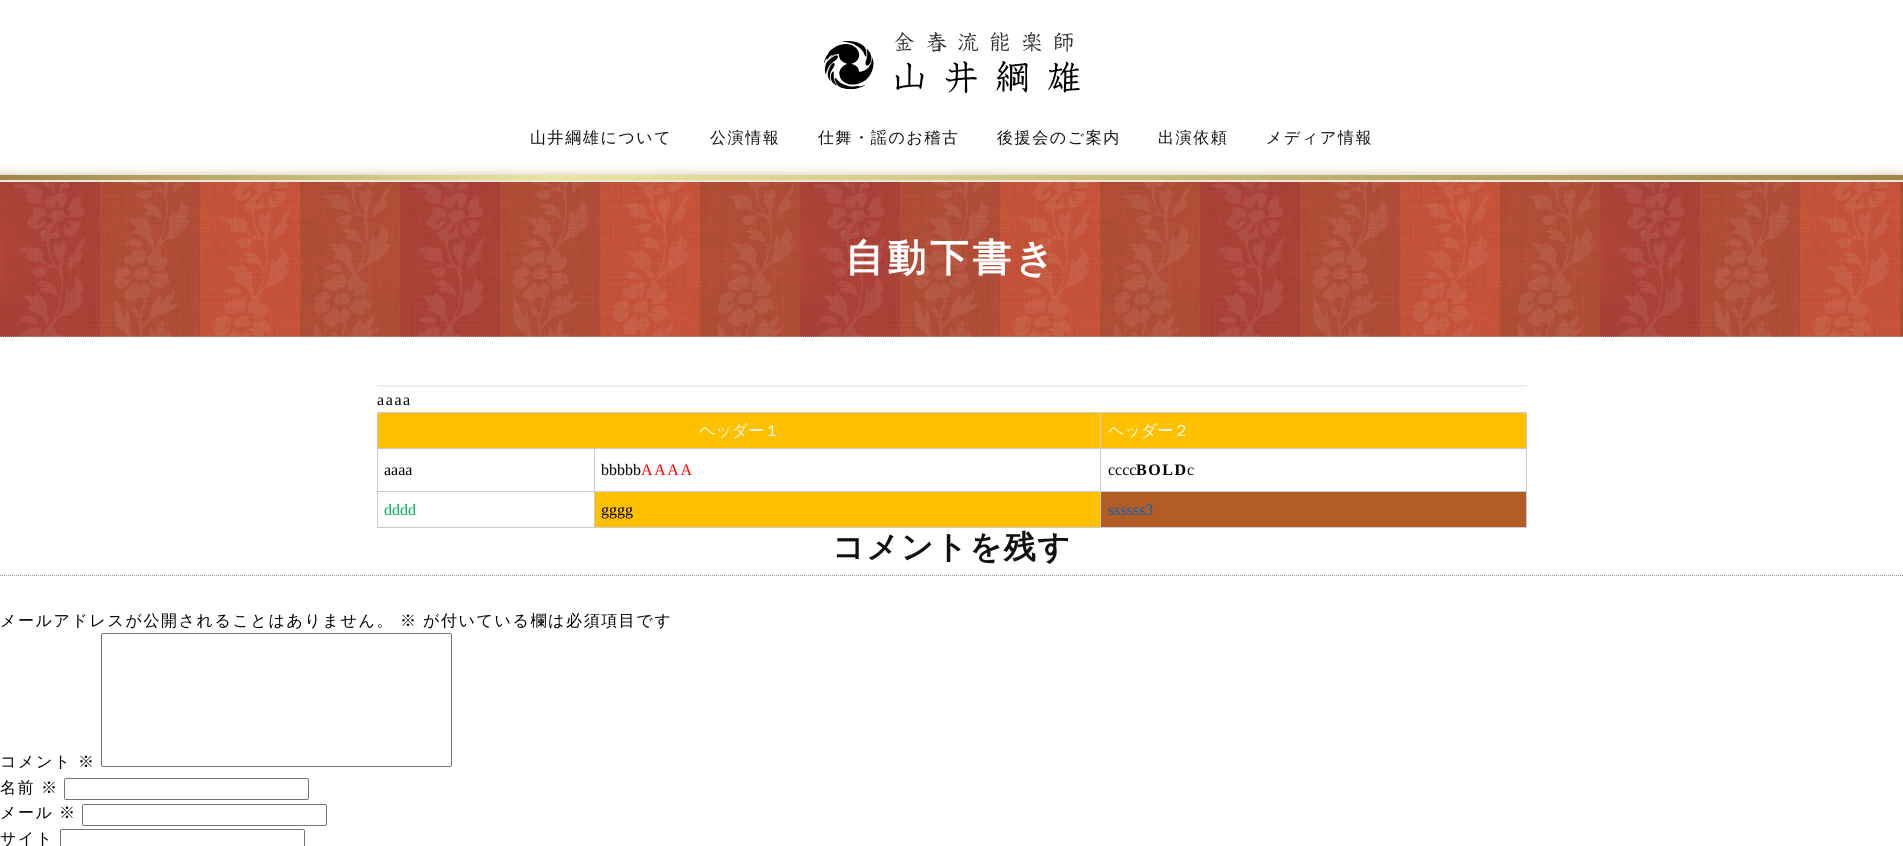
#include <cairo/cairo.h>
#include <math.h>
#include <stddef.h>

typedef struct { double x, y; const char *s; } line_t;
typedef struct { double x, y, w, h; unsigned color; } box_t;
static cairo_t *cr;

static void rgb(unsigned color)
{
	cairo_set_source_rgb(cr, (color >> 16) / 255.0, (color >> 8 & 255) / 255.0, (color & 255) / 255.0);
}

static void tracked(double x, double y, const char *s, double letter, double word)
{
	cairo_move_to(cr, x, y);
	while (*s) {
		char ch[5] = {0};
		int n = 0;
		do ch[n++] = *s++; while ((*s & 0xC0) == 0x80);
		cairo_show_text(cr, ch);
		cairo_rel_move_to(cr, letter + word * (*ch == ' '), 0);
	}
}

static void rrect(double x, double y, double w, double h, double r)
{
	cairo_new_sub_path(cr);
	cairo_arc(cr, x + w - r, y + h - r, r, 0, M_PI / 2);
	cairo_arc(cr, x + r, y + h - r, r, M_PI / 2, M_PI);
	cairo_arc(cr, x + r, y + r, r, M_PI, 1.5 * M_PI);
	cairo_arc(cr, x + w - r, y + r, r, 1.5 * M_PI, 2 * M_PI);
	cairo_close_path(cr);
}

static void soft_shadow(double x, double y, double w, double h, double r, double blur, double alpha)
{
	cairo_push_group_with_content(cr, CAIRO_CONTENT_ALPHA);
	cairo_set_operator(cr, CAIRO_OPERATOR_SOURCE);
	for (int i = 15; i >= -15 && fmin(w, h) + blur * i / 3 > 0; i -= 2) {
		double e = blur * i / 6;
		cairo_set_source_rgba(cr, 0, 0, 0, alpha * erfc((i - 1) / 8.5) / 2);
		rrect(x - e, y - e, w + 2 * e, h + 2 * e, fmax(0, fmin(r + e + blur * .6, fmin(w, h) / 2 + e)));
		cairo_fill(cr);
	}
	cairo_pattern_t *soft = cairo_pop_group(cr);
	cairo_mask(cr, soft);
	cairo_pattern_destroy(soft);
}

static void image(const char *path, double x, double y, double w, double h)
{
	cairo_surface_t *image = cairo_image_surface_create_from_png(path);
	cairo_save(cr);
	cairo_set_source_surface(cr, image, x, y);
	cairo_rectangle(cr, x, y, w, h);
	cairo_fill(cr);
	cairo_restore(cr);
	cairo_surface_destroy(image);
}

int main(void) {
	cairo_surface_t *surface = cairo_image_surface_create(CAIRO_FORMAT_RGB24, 1903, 846);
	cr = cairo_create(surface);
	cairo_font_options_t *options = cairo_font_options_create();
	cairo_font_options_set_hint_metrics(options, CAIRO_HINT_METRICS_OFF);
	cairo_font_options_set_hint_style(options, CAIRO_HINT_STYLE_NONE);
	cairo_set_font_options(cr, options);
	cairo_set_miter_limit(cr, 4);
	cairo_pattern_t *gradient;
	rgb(0xffffff);
	cairo_paint(cr);
	image("img/1.png", 824, 32, 256, 61);
	rgb(0x9e864a);
	soft_shadow(0, 175, 1903, 5, 0, 5, 0.5);
	gradient = cairo_pattern_create_linear(0, 178, 1903, 177);
	cairo_pattern_add_color_stop_rgba(gradient, 0, 0.62, 0.525, 0.29, 1);
	cairo_pattern_add_color_stop_rgba(gradient, 0.29, 0.914, 0.902, 0.631, 1);
	cairo_pattern_add_color_stop_rgba(gradient, 1, 0.62, 0.525, 0.29, 1);
	cairo_set_source(cr, gradient);
	cairo_pattern_destroy(gradient);
	cairo_rectangle(cr, 0, 175, 1903, 5);
	cairo_fill(cr);
	image("img/2.png", 0, 182, 1903, 155);
	cairo_new_path(cr);
	cairo_move_to(cr, 0, 336.5);
	cairo_line_to(cr, 1903, 336.5);
	rgb(0x999999);
	cairo_set_line_width(cr, 1);
	cairo_set_dash(cr, (double[]){1, 1}, 2, 0);
	cairo_stroke(cr);
	rgb(0xeeeeee);
	rrect(377, 385, 1150, 2, 1);
	cairo_fill(cr);
	{
		static const box_t items[] = {
			{378, 413, 722, 35, 0xffc000},
			{1100, 412, 427, 1, 0xcccccc},
			{1100, 448, 427, 1, 0xcccccc},
			{1100, 491, 427, 1, 0xcccccc},
			{1526, 491, 1, 37, 0xcccccc},
			{1100, 527, 427, 1, 0xcccccc},
			{1100, 491, 1, 37, 0xcccccc},
			{594, 491, 507, 1, 0xcccccc},
			{1100, 448, 1, 44, 0xcccccc},
			{594, 448, 507, 1, 0xcccccc},
			{1100, 412, 1, 37, 0xcccccc},
			{377, 412, 724, 1, 0xcccccc},
			{594, 527, 507, 1, 0xcccccc},
			{594, 491, 1, 37, 0xcccccc},
			{377, 491, 218, 1, 0xcccccc},
			{594, 448, 1, 44, 0xcccccc},
			{377, 448, 218, 1, 0xcccccc},
			{377, 527, 218, 1, 0xcccccc},
			{377, 491, 1, 37, 0xcccccc},
			{377, 448, 1, 44, 0xcccccc},
			{377, 412, 1, 37, 0xcccccc},
			{1101, 413, 425, 35, 0xffc000},
			{1526, 448, 1, 44, 0xcccccc},
			{1526, 412, 1, 37, 0xcccccc},
			{595, 492, 505, 35, 0xffc000},
			{1101, 492, 425, 35, 0xb15d24},
		};
		for (size_t i = 0; i < sizeof items / sizeof *items; i++) {
			rgb(items[i].color);
			cairo_rectangle(cr, items[i].x, items[i].y, items[i].w, items[i].h);
			cairo_fill(cr);
		}
	}
	cairo_new_path(cr);
	cairo_move_to(cr, 0, 575.5);
	cairo_line_to(cr, 1903, 575.5);
	rgb(0x999999);
	cairo_stroke(cr);
	rrect(101.5, 633.5, 350, 133, 1.5);
	rgb(0x767676);
	cairo_set_dash(cr, NULL, 0, 0);
	cairo_stroke(cr);
	rrect(64.5, 778.5, 244, 21, 1.5);
	cairo_stroke(cr);
	rrect(82.5, 804.5, 244, 21, 1.5);
	cairo_stroke(cr);
	rrect(60.5, 829.5, 244, 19, 1.5);
	cairo_stroke(cr);
	cairo_select_font_face(cr, "WenQuanYi Zen Hei Medium", CAIRO_FONT_SLANT_NORMAL, CAIRO_FONT_WEIGHT_NORMAL);
	cairo_set_font_size(cr, 16);
	rgb(0x111111);
	{
		static const line_t items[] = {
			{530, 143, "山井綱雄について"},
			{710, 143, "公演情報"},
			{818, 143, "仕舞・謡のお稽古"},
			{997, 143, "後援会のご案内"},
			{1158, 143, "出演依頼"},
			{1266, 143, "メディア情報"},
		};
		for (size_t i = 0; i < sizeof items / sizeof *items; i++) {
			tracked(items[i].x, items[i].y, items[i].s, 1.6, 0);
		}
	}
	cairo_select_font_face(cr, "WenQuanYi Zen Hei", CAIRO_FONT_SLANT_NORMAL, CAIRO_FONT_WEIGHT_BOLD);
	cairo_set_font_size(cr, 38.5);
	rgb(0xffffff);
	tracked(845, 271, "自動下書き", 4, 0);
	cairo_select_font_face(cr, "Liberation Serif", CAIRO_FONT_SLANT_NORMAL, CAIRO_FONT_WEIGHT_NORMAL);
	cairo_set_font_size(cr, 16);
	rgb(0x000000);
	tracked(377, 405, "aaaa", 1.6, 0);
	cairo_select_font_face(cr, "WenQuanYi Zen Hei Medium", CAIRO_FONT_SLANT_NORMAL, CAIRO_FONT_WEIGHT_NORMAL);
	rgb(0xffffff);
	cairo_move_to(cr, 699, 436);
	cairo_show_text(cr, "ヘッダー１");
	cairo_move_to(cr, 1108, 436);
	cairo_show_text(cr, "ヘッダー２");
	cairo_select_font_face(cr, "Liberation Serif", CAIRO_FONT_SLANT_NORMAL, CAIRO_FONT_WEIGHT_NORMAL);
	rgb(0x000000);
	cairo_move_to(cr, 384, 475);
	cairo_show_text(cr, "aaaa");
	cairo_move_to(cr, 601, 475);
	cairo_show_text(cr, "bbbbb");
	rgb(0xff0000);
	tracked(641, 475, "AAAA", 1.6, 0);
	rgb(0x000000);
	cairo_move_to(cr, 1108, 475);
	cairo_show_text(cr, "cccc");
	cairo_select_font_face(cr, "Liberation Serif", CAIRO_FONT_SLANT_NORMAL, CAIRO_FONT_WEIGHT_BOLD);
	tracked(1136, 475, "BOLD", 1.6, 0);
	cairo_select_font_face(cr, "Liberation Serif", CAIRO_FONT_SLANT_NORMAL, CAIRO_FONT_WEIGHT_NORMAL);
	tracked(1187, 475, "c", 1.6, 0);
	rgb(0x00b050);
	cairo_move_to(cr, 384, 515);
	cairo_show_text(cr, "dddd");
	rgb(0x000000);
	cairo_move_to(cr, 601, 515);
	cairo_show_text(cr, "gggg");
	rgb(0x0563c1);
	cairo_move_to(cr, 1108, 515);
	cairo_show_text(cr, "ssssss3");
	cairo_select_font_face(cr, "WenQuanYi Zen Hei", CAIRO_FONT_SLANT_NORMAL, CAIRO_FONT_WEIGHT_BOLD);
	cairo_set_font_size(cr, 32);
	rgb(0x111111);
	tracked(832, 558, "コメントを残す", 1.6, 0);
	cairo_select_font_face(cr, "WenQuanYi Zen Hei Medium", CAIRO_FONT_SLANT_NORMAL, CAIRO_FONT_WEIGHT_NORMAL);
	cairo_set_font_size(cr, 16);
	rgb(0x000000);
	{
		static const line_t items[] = {
			{0, 626, "メールアドレスが公開されることはありません。"},
			{400, 626, "※"},
			{423, 626, "が付いている欄は必須項目です"},
			{0, 767, "コメント"},
			{78, 767, "※"},
			{0, 793, "名前"},
			{41, 793, "※"},
			{0, 818, "メール"},
			{59, 818, "※"},
			{0, 844, "サイト"},
		};
		for (size_t i = 0; i < sizeof items / sizeof *items; i++) {
			tracked(items[i].x, items[i].y, items[i].s, 1.6, 0);
		}
	}
	cairo_surface_write_to_png(surface, "page.png");
	cairo_font_options_destroy(options);
	cairo_destroy(cr);
	cairo_surface_destroy(surface);
	return 0;
}
